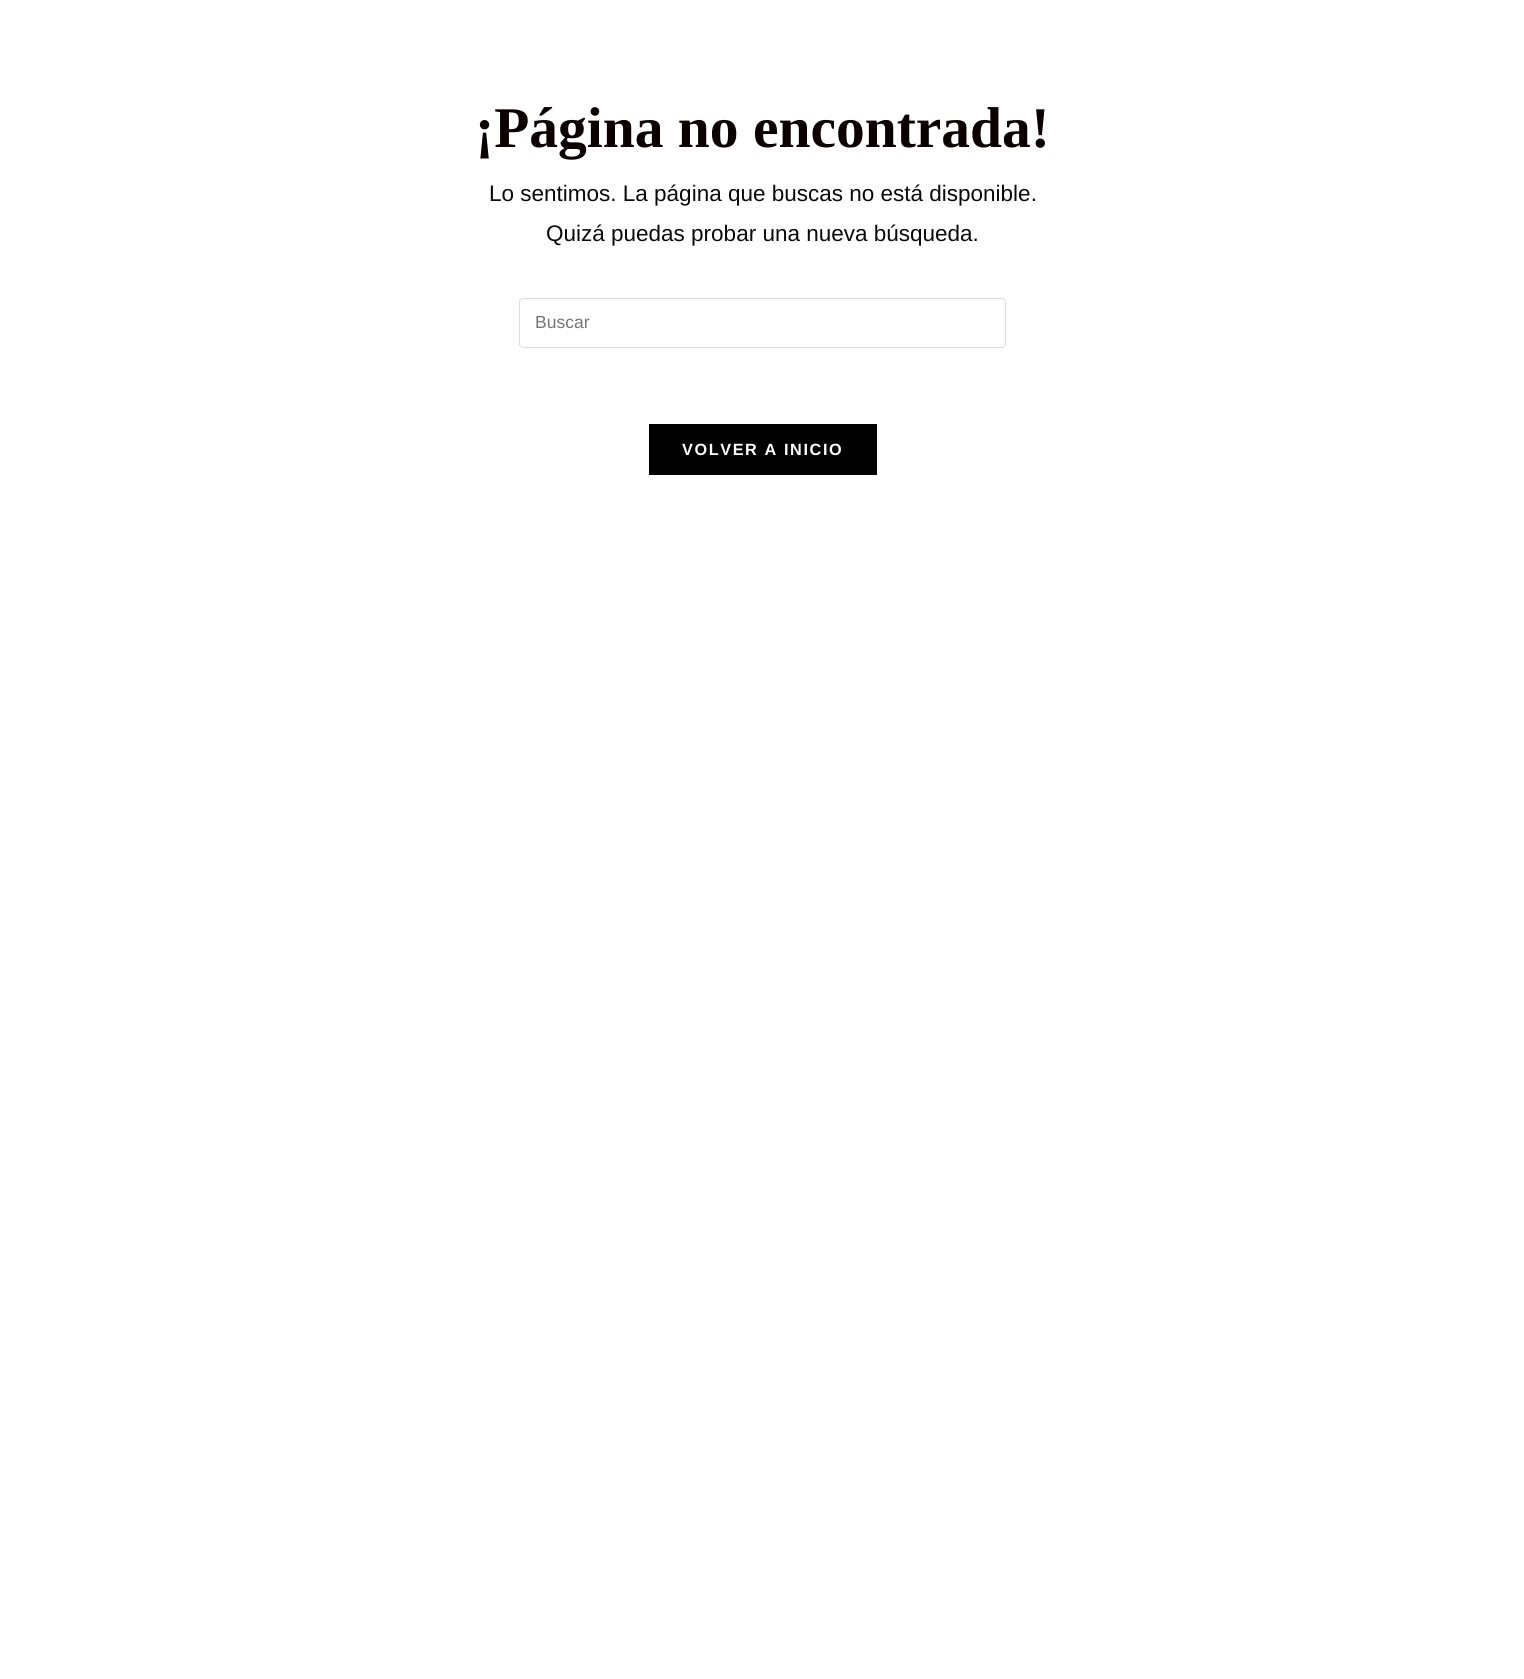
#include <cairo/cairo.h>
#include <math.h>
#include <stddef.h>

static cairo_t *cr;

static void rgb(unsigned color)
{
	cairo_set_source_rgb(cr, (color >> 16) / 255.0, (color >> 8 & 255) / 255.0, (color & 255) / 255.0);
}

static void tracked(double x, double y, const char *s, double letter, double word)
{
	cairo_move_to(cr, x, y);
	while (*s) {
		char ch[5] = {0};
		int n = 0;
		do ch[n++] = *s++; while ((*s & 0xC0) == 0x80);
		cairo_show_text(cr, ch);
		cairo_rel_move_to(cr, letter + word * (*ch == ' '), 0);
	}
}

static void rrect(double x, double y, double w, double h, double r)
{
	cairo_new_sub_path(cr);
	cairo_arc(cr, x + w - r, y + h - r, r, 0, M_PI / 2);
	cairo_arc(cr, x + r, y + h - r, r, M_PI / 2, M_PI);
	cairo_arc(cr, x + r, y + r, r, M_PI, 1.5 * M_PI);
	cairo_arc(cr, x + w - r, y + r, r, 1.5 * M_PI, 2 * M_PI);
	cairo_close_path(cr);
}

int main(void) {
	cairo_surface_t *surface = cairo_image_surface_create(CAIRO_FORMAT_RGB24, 1524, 1679);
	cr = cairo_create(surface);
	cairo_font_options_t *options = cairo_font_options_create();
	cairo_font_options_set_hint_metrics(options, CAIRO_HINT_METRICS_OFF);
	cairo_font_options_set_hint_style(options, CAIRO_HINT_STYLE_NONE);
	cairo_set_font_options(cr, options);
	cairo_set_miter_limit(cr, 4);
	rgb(0xffffff);
	cairo_paint(cr);
	rrect(519.5, 298.5, 486, 49, 3.5);
	rgb(0xdddddd);
	cairo_set_line_width(cr, 1);
	cairo_stroke(cr);
	rgb(0x000000);
	cairo_rectangle(cr, 649, 424, 228, 51);
	cairo_fill(cr);
	cairo_select_font_face(cr, "Liberation Serif", CAIRO_FONT_SLANT_NORMAL, CAIRO_FONT_WEIGHT_BOLD);
	cairo_set_font_size(cr, 57.5);
	rgb(0x0a0000);
	cairo_move_to(cr, 475, 147);
	cairo_show_text(cr, "¡Página no encontrada!");
	cairo_select_font_face(cr, "Liberation Sans", CAIRO_FONT_SLANT_NORMAL, CAIRO_FONT_WEIGHT_NORMAL);
	cairo_set_font_size(cr, 22.5);
	rgb(0x0a0a0a);
	cairo_move_to(cr, 489, 201);
	cairo_show_text(cr, "Lo sentimos. La página que buscas no está disponible.");
	cairo_move_to(cr, 546, 241);
	cairo_show_text(cr, "Quizá puedas probar una nueva búsqueda.");
	cairo_set_font_size(cr, 17.5);
	rgb(0x757575);
	cairo_move_to(cr, 535, 328);
	cairo_show_text(cr, "Buscar");
	cairo_select_font_face(cr, "Liberation Sans", CAIRO_FONT_SLANT_NORMAL, CAIRO_FONT_WEIGHT_BOLD);
	cairo_set_font_size(cr, 16.25);
	rgb(0xffffff);
	tracked(682, 455, "VOLVER A INICIO", 1.6, 0);
	cairo_surface_write_to_png(surface, "page.png");
	cairo_font_options_destroy(options);
	cairo_destroy(cr);
	cairo_surface_destroy(surface);
	return 0;
}
